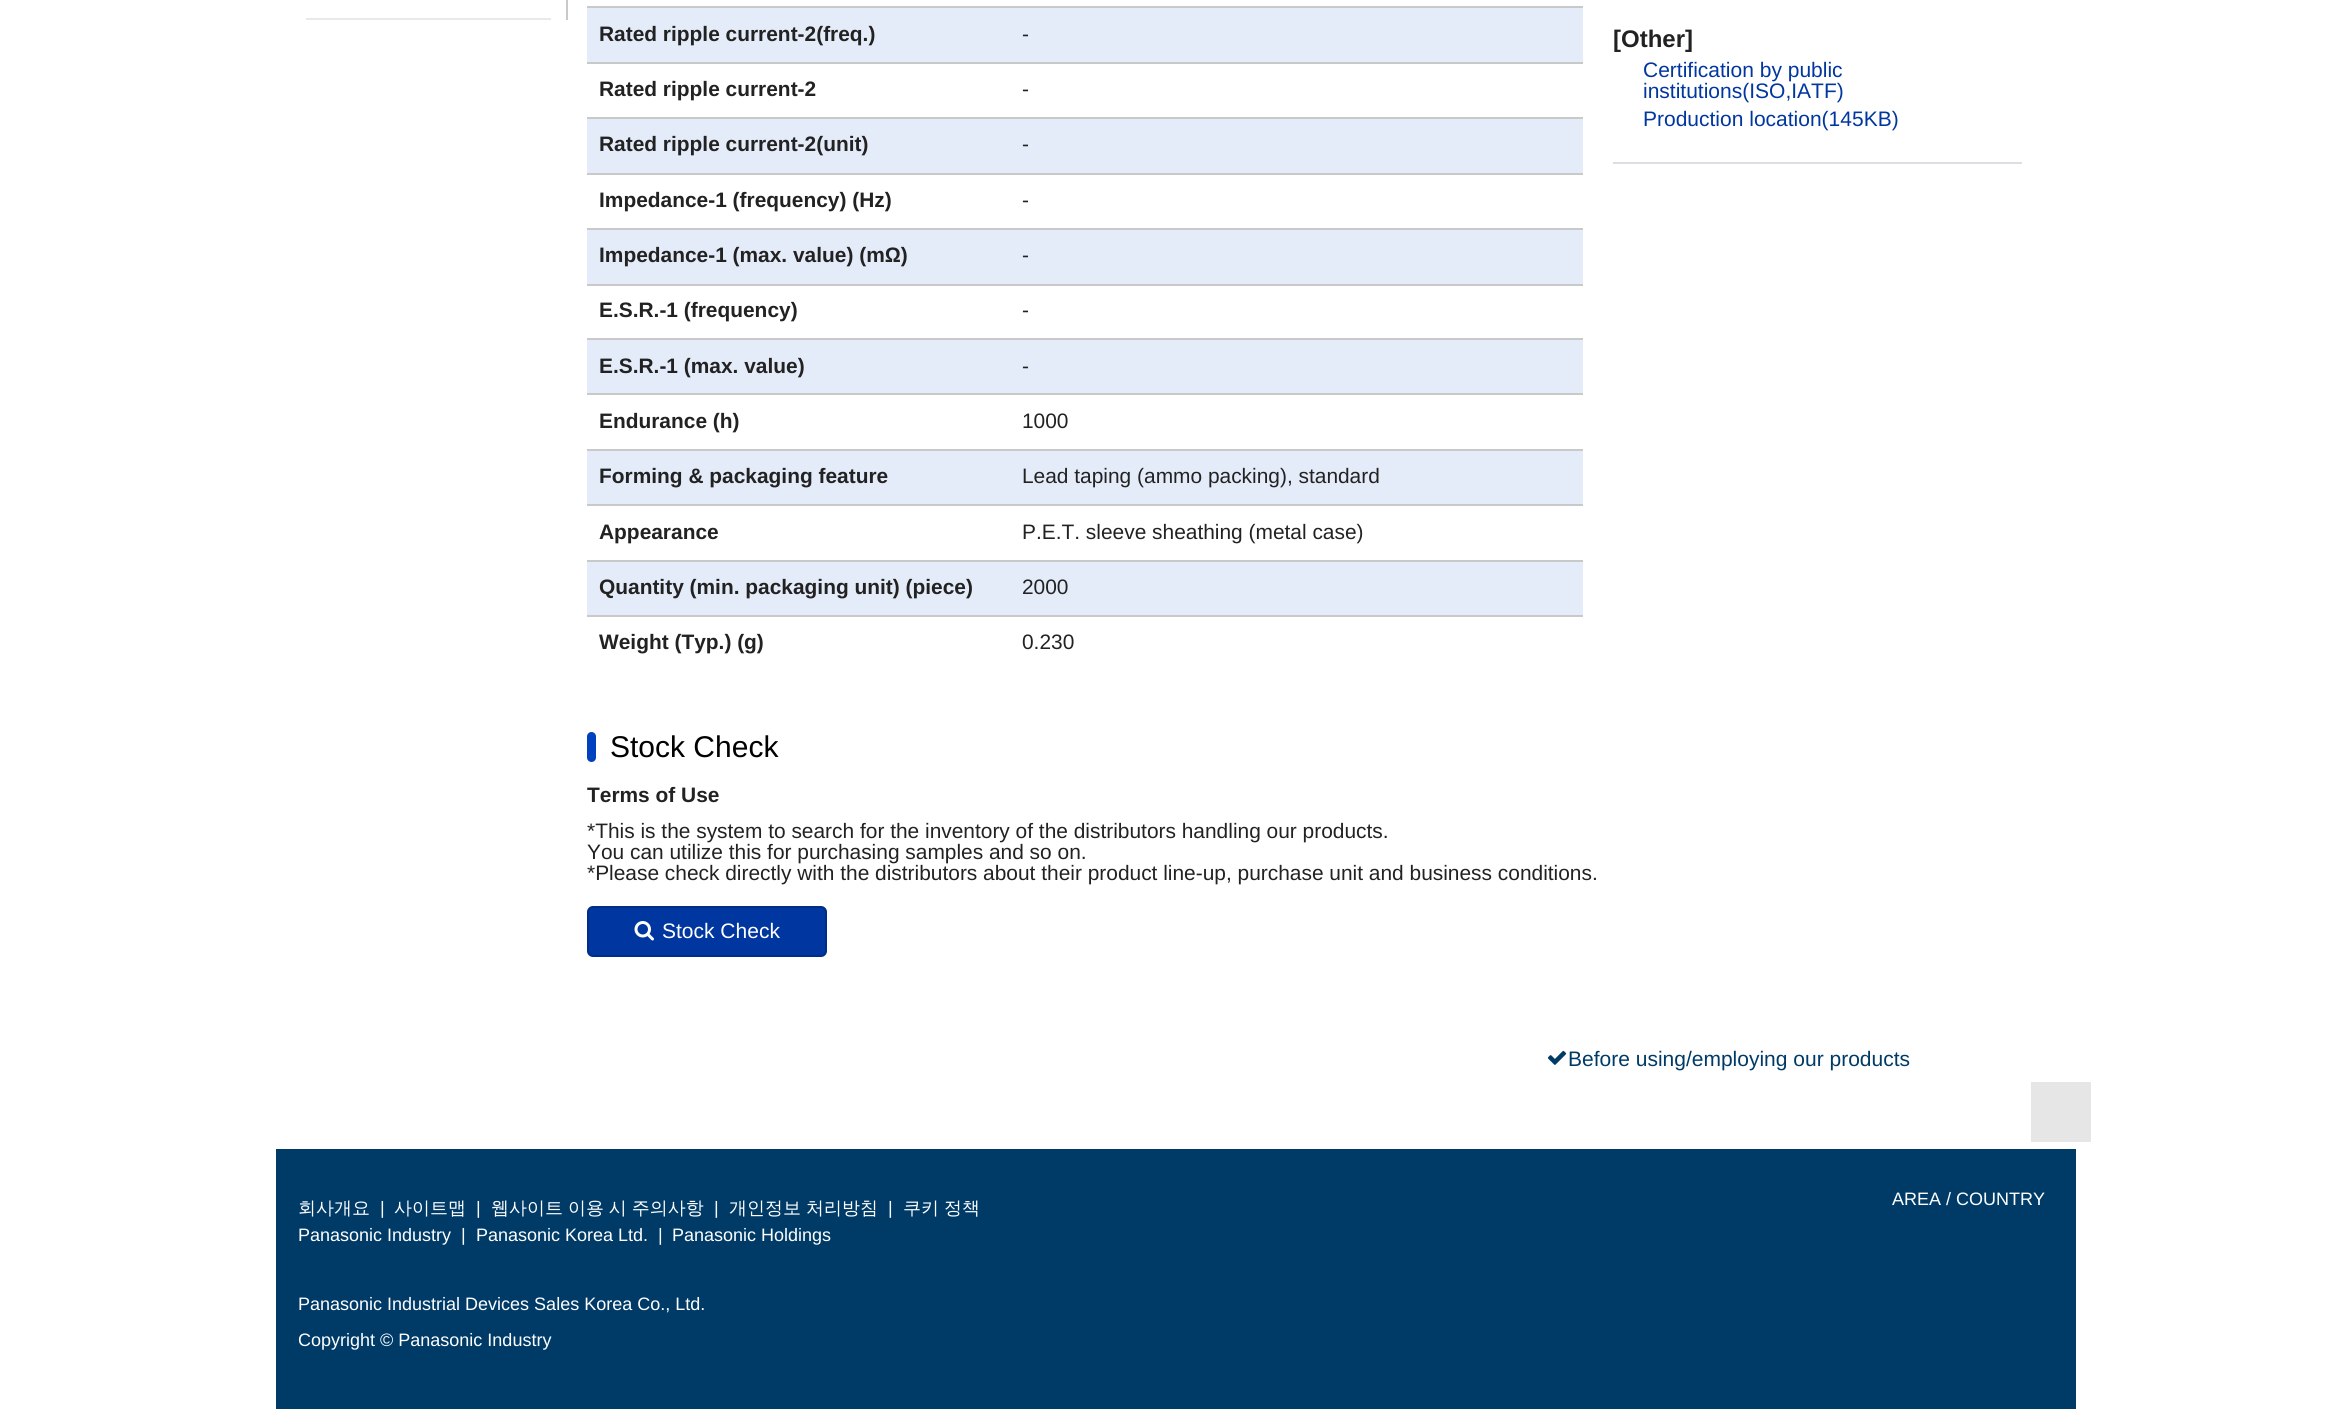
#include <cairo/cairo.h>
#include <math.h>
#include <stddef.h>

typedef struct { double x, y; const char *s; } line_t;
typedef struct { double x, y, w, h; unsigned color; } box_t;
static cairo_t *cr;

static void rgb(unsigned color)
{
	cairo_set_source_rgb(cr, (color >> 16) / 255.0, (color >> 8 & 255) / 255.0, (color & 255) / 255.0);
}

static void tracked(double x, double y, const char *s, double letter, double word)
{
	cairo_move_to(cr, x, y);
	while (*s) {
		char ch[5] = {0};
		int n = 0;
		do ch[n++] = *s++; while ((*s & 0xC0) == 0x80);
		cairo_show_text(cr, ch);
		cairo_rel_move_to(cr, letter + word * (*ch == ' '), 0);
	}
}

static void rrect(double x, double y, double w, double h, double r)
{
	cairo_new_sub_path(cr);
	cairo_arc(cr, x + w - r, y + h - r, r, 0, M_PI / 2);
	cairo_arc(cr, x + r, y + h - r, r, M_PI / 2, M_PI);
	cairo_arc(cr, x + r, y + r, r, M_PI, 1.5 * M_PI);
	cairo_arc(cr, x + w - r, y + r, r, 1.5 * M_PI, 2 * M_PI);
	cairo_close_path(cr);
}

static void image(const char *path, double x, double y, double w, double h)
{
	cairo_surface_t *image = cairo_image_surface_create_from_png(path);
	cairo_save(cr);
	cairo_set_source_surface(cr, image, x, y);
	cairo_rectangle(cr, x, y, w, h);
	cairo_fill(cr);
	cairo_restore(cr);
	cairo_surface_destroy(image);
}

int main(void) {
	cairo_surface_t *surface = cairo_image_surface_create(CAIRO_FORMAT_RGB24, 2350, 1410);
	cr = cairo_create(surface);
	cairo_font_options_t *options = cairo_font_options_create();
	cairo_font_options_set_hint_metrics(options, CAIRO_HINT_METRICS_OFF);
	cairo_font_options_set_hint_style(options, CAIRO_HINT_STYLE_NONE);
	cairo_set_font_options(cr, options);
	cairo_set_miter_limit(cr, 4);
	rgb(0xffffff);
	cairo_paint(cr);
	{
		static const box_t items[] = {
			{566, 0, 2, 20, 0xc9c9c9},
			{306, 18, 245, 2, 0xe9e9e9},
			{587, 8, 996, 54, 0xe5ecf9},
			{587, 6, 996, 2, 0xc9c9c9},
			{587, 62, 996, 2, 0xc9c9c9},
			{587, 119, 996, 54, 0xe5ecf9},
			{587, 117, 996, 2, 0xc9c9c9},
			{587, 173, 996, 2, 0xc9c9c9},
			{587, 230, 996, 54, 0xe5ecf9},
			{587, 228, 996, 2, 0xc9c9c9},
			{587, 284, 996, 2, 0xc9c9c9},
			{587, 340, 996, 53, 0xe5ecf9},
			{587, 338, 996, 2, 0xc9c9c9},
			{587, 393, 996, 2, 0xc9c9c9},
			{587, 451, 996, 53, 0xe5ecf9},
			{587, 449, 996, 2, 0xc9c9c9},
			{587, 504, 996, 2, 0xc9c9c9},
			{587, 562, 996, 53, 0xe5ecf9},
			{587, 560, 996, 2, 0xc9c9c9},
			{587, 615, 996, 2, 0xc9c9c9},
			{1613, 162, 409, 2, 0xdbdee4},
		};
		for (size_t i = 0; i < sizeof items / sizeof *items; i++) {
			rgb(items[i].color);
			cairo_rectangle(cr, items[i].x, items[i].y, items[i].w, items[i].h);
			cairo_fill(cr);
		}
	}
	rgb(0x0041c0);
	rrect(587, 732, 9, 30, 4.5);
	cairo_fill(cr);
	rgb(0x00369f);
	rrect(588, 907, 238, 49, 5);
	cairo_fill_preserve(cr);
	rgb(0x002d85);
	cairo_stroke(cr);
	image("img/1.png", 634, 921, 20, 20);
	rgb(0x003b68);
	cairo_rectangle(cr, 276, 1149, 1800, 260);
	cairo_fill(cr);
	image("img/2.png", 1547, 1050, 20, 15);
	rgb(0xe6e6e6);
	cairo_rectangle(cr, 2031, 1082, 60, 60);
	cairo_fill(cr);
	cairo_select_font_face(cr, "Liberation Sans", CAIRO_FONT_SLANT_NORMAL, CAIRO_FONT_WEIGHT_BOLD);
	cairo_set_font_size(cr, 20.9);
	rgb(0x222222);
	cairo_move_to(cr, 599, 41);
	cairo_show_text(cr, "Rated ripple current-2(freq.)");
	cairo_select_font_face(cr, "Liberation Sans", CAIRO_FONT_SLANT_NORMAL, CAIRO_FONT_WEIGHT_NORMAL);
	cairo_move_to(cr, 1022, 41);
	cairo_show_text(cr, "-");
	cairo_select_font_face(cr, "Liberation Sans", CAIRO_FONT_SLANT_NORMAL, CAIRO_FONT_WEIGHT_BOLD);
	cairo_move_to(cr, 599, 96);
	cairo_show_text(cr, "Rated ripple current-2");
	cairo_select_font_face(cr, "Liberation Sans", CAIRO_FONT_SLANT_NORMAL, CAIRO_FONT_WEIGHT_NORMAL);
	cairo_move_to(cr, 1022, 96);
	cairo_show_text(cr, "-");
	cairo_select_font_face(cr, "Liberation Sans", CAIRO_FONT_SLANT_NORMAL, CAIRO_FONT_WEIGHT_BOLD);
	cairo_move_to(cr, 599, 151);
	cairo_show_text(cr, "Rated ripple current-2(unit)");
	cairo_select_font_face(cr, "Liberation Sans", CAIRO_FONT_SLANT_NORMAL, CAIRO_FONT_WEIGHT_NORMAL);
	cairo_move_to(cr, 1022, 151);
	cairo_show_text(cr, "-");
	cairo_select_font_face(cr, "Liberation Sans", CAIRO_FONT_SLANT_NORMAL, CAIRO_FONT_WEIGHT_BOLD);
	cairo_move_to(cr, 599, 207);
	cairo_show_text(cr, "Impedance-1 (frequency) (Hz)");
	cairo_select_font_face(cr, "Liberation Sans", CAIRO_FONT_SLANT_NORMAL, CAIRO_FONT_WEIGHT_NORMAL);
	cairo_move_to(cr, 1022, 207);
	cairo_show_text(cr, "-");
	cairo_select_font_face(cr, "Liberation Sans", CAIRO_FONT_SLANT_NORMAL, CAIRO_FONT_WEIGHT_BOLD);
	cairo_move_to(cr, 599, 262);
	cairo_show_text(cr, "Impedance-1 (max. value) (mΩ)");
	cairo_select_font_face(cr, "Liberation Sans", CAIRO_FONT_SLANT_NORMAL, CAIRO_FONT_WEIGHT_NORMAL);
	cairo_move_to(cr, 1022, 262);
	cairo_show_text(cr, "-");
	cairo_select_font_face(cr, "Liberation Sans", CAIRO_FONT_SLANT_NORMAL, CAIRO_FONT_WEIGHT_BOLD);
	cairo_move_to(cr, 599, 317);
	cairo_show_text(cr, "E.S.R.-1 (frequency)");
	cairo_select_font_face(cr, "Liberation Sans", CAIRO_FONT_SLANT_NORMAL, CAIRO_FONT_WEIGHT_NORMAL);
	cairo_move_to(cr, 1022, 317);
	cairo_show_text(cr, "-");
	cairo_select_font_face(cr, "Liberation Sans", CAIRO_FONT_SLANT_NORMAL, CAIRO_FONT_WEIGHT_BOLD);
	cairo_move_to(cr, 599, 373);
	cairo_show_text(cr, "E.S.R.-1 (max. value)");
	cairo_select_font_face(cr, "Liberation Sans", CAIRO_FONT_SLANT_NORMAL, CAIRO_FONT_WEIGHT_NORMAL);
	cairo_move_to(cr, 1022, 373);
	cairo_show_text(cr, "-");
	cairo_select_font_face(cr, "Liberation Sans", CAIRO_FONT_SLANT_NORMAL, CAIRO_FONT_WEIGHT_BOLD);
	cairo_move_to(cr, 599, 428);
	cairo_show_text(cr, "Endurance (h)");
	cairo_select_font_face(cr, "Liberation Sans", CAIRO_FONT_SLANT_NORMAL, CAIRO_FONT_WEIGHT_NORMAL);
	cairo_move_to(cr, 1022, 428);
	cairo_show_text(cr, "1000");
	cairo_select_font_face(cr, "Liberation Sans", CAIRO_FONT_SLANT_NORMAL, CAIRO_FONT_WEIGHT_BOLD);
	cairo_move_to(cr, 599, 483);
	cairo_show_text(cr, "Forming & packaging feature");
	cairo_select_font_face(cr, "Liberation Sans", CAIRO_FONT_SLANT_NORMAL, CAIRO_FONT_WEIGHT_NORMAL);
	cairo_move_to(cr, 1022, 483);
	cairo_show_text(cr, "Lead taping (ammo packing), standard");
	cairo_select_font_face(cr, "Liberation Sans", CAIRO_FONT_SLANT_NORMAL, CAIRO_FONT_WEIGHT_BOLD);
	cairo_move_to(cr, 599, 539);
	cairo_show_text(cr, "Appearance");
	cairo_select_font_face(cr, "Liberation Sans", CAIRO_FONT_SLANT_NORMAL, CAIRO_FONT_WEIGHT_NORMAL);
	cairo_move_to(cr, 1022, 539);
	cairo_show_text(cr, "P.E.T. sleeve sheathing (metal case)");
	cairo_select_font_face(cr, "Liberation Sans", CAIRO_FONT_SLANT_NORMAL, CAIRO_FONT_WEIGHT_BOLD);
	cairo_move_to(cr, 599, 594);
	cairo_show_text(cr, "Quantity (min. packaging unit) (piece)");
	cairo_select_font_face(cr, "Liberation Sans", CAIRO_FONT_SLANT_NORMAL, CAIRO_FONT_WEIGHT_NORMAL);
	cairo_move_to(cr, 1022, 594);
	cairo_show_text(cr, "2000");
	cairo_select_font_face(cr, "Liberation Sans", CAIRO_FONT_SLANT_NORMAL, CAIRO_FONT_WEIGHT_BOLD);
	cairo_move_to(cr, 599, 649);
	cairo_show_text(cr, "Weight (Typ.) (g)");
	cairo_select_font_face(cr, "Liberation Sans", CAIRO_FONT_SLANT_NORMAL, CAIRO_FONT_WEIGHT_NORMAL);
	cairo_move_to(cr, 1022, 649);
	cairo_show_text(cr, "0.230");
	cairo_select_font_face(cr, "Liberation Sans", CAIRO_FONT_SLANT_NORMAL, CAIRO_FONT_WEIGHT_BOLD);
	cairo_set_font_size(cr, 24);
	cairo_move_to(cr, 1613, 47);
	cairo_show_text(cr, "[Other]");
	cairo_select_font_face(cr, "Liberation Sans", CAIRO_FONT_SLANT_NORMAL, CAIRO_FONT_WEIGHT_NORMAL);
	cairo_set_font_size(cr, 21);
	rgb(0x00369f);
	{
		static const line_t items[] = {
			{1643, 77, "Certification by public"},
			{1643, 98, "institutions(ISO,IATF)"},
			{1643, 126, "Production location(145KB)"},
		};
		for (size_t i = 0; i < sizeof items / sizeof *items; i++) {
			cairo_move_to(cr, items[i].x, items[i].y);
			cairo_show_text(cr, items[i].s);
		}
	}
	cairo_set_font_size(cr, 30);
	rgb(0x000000);
	cairo_move_to(cr, 610, 757);
	cairo_show_text(cr, "Stock Check");
	cairo_select_font_face(cr, "Liberation Sans", CAIRO_FONT_SLANT_NORMAL, CAIRO_FONT_WEIGHT_BOLD);
	cairo_set_font_size(cr, 20.9);
	rgb(0x222222);
	cairo_move_to(cr, 587, 802);
	cairo_show_text(cr, "Terms of Use");
	cairo_select_font_face(cr, "Liberation Sans", CAIRO_FONT_SLANT_NORMAL, CAIRO_FONT_WEIGHT_NORMAL);
	{
		static const line_t items[] = {
			{587, 838, "*This is the system to search for the inventory of the distributors handling our products."},
			{587, 859, "You can utilize this for purchasing samples and so on."},
			{587, 880, "*Please check directly with the distributors about their product line-up, purchase unit and business conditions."},
		};
		for (size_t i = 0; i < sizeof items / sizeof *items; i++) {
			cairo_move_to(cr, items[i].x, items[i].y);
			cairo_show_text(cr, items[i].s);
		}
	}
	cairo_set_font_size(cr, 21);
	rgb(0xffffff);
	cairo_move_to(cr, 662, 938);
	cairo_show_text(cr, "Stock Check");
	rgb(0x003b68);
	cairo_move_to(cr, 1568, 1066);
	cairo_show_text(cr, "Before using/employing our products");
	cairo_set_font_size(cr, 18);
	rgb(0xffffff);
	cairo_move_to(cr, 1892, 1205);
	cairo_show_text(cr, "AREA / COUNTRY");
	cairo_select_font_face(cr, "WenQuanYi Zen Hei Medium", CAIRO_FONT_SLANT_NORMAL, CAIRO_FONT_WEIGHT_NORMAL);
	cairo_move_to(cr, 298, 1214);
	cairo_show_text(cr, "회사개요");
	cairo_select_font_face(cr, "Liberation Sans", CAIRO_FONT_SLANT_NORMAL, CAIRO_FONT_WEIGHT_NORMAL);
	rgb(0xf9f9f9);
	cairo_move_to(cr, 380, 1214);
	cairo_show_text(cr, "|");
	cairo_select_font_face(cr, "WenQuanYi Zen Hei Medium", CAIRO_FONT_SLANT_NORMAL, CAIRO_FONT_WEIGHT_NORMAL);
	rgb(0xffffff);
	cairo_move_to(cr, 394, 1214);
	cairo_show_text(cr, "사이트맵");
	cairo_select_font_face(cr, "Liberation Sans", CAIRO_FONT_SLANT_NORMAL, CAIRO_FONT_WEIGHT_NORMAL);
	rgb(0xf9f9f9);
	cairo_move_to(cr, 476, 1214);
	cairo_show_text(cr, "|");
	cairo_select_font_face(cr, "WenQuanYi Zen Hei Medium", CAIRO_FONT_SLANT_NORMAL, CAIRO_FONT_WEIGHT_NORMAL);
	rgb(0xffffff);
	tracked(491, 1214, "웹사이트 이용 시 주의사항", 0, -0.5);
	cairo_select_font_face(cr, "Liberation Sans", CAIRO_FONT_SLANT_NORMAL, CAIRO_FONT_WEIGHT_NORMAL);
	rgb(0xf9f9f9);
	cairo_move_to(cr, 714, 1214);
	cairo_show_text(cr, "|");
	cairo_select_font_face(cr, "WenQuanYi Zen Hei Medium", CAIRO_FONT_SLANT_NORMAL, CAIRO_FONT_WEIGHT_NORMAL);
	rgb(0xffffff);
	tracked(729, 1214, "개인정보 처리방침", 0, -0.5);
	cairo_select_font_face(cr, "Liberation Sans", CAIRO_FONT_SLANT_NORMAL, CAIRO_FONT_WEIGHT_NORMAL);
	rgb(0xf9f9f9);
	cairo_move_to(cr, 888, 1214);
	cairo_show_text(cr, "|");
	cairo_select_font_face(cr, "WenQuanYi Zen Hei Medium", CAIRO_FONT_SLANT_NORMAL, CAIRO_FONT_WEIGHT_NORMAL);
	rgb(0xffffff);
	tracked(903, 1214, "쿠키 정책", 0, -0.5);
	cairo_select_font_face(cr, "Liberation Sans", CAIRO_FONT_SLANT_NORMAL, CAIRO_FONT_WEIGHT_NORMAL);
	cairo_move_to(cr, 298, 1241);
	cairo_show_text(cr, "Panasonic Industry");
	rgb(0xf9f9f9);
	cairo_move_to(cr, 461, 1241);
	cairo_show_text(cr, "|");
	rgb(0xffffff);
	cairo_move_to(cr, 476, 1241);
	cairo_show_text(cr, "Panasonic Korea Ltd.");
	rgb(0xf9f9f9);
	cairo_move_to(cr, 658, 1241);
	cairo_show_text(cr, "|");
	rgb(0xffffff);
	{
		static const line_t items[] = {
			{672, 1241, "Panasonic Holdings"},
			{298, 1310, "Panasonic Industrial Devices Sales Korea Co., Ltd."},
			{298, 1346, "Copyright © Panasonic Industry"},
		};
		for (size_t i = 0; i < sizeof items / sizeof *items; i++) {
			cairo_move_to(cr, items[i].x, items[i].y);
			cairo_show_text(cr, items[i].s);
		}
	}
	cairo_surface_write_to_png(surface, "page.png");
	cairo_font_options_destroy(options);
	cairo_destroy(cr);
	cairo_surface_destroy(surface);
	return 0;
}
